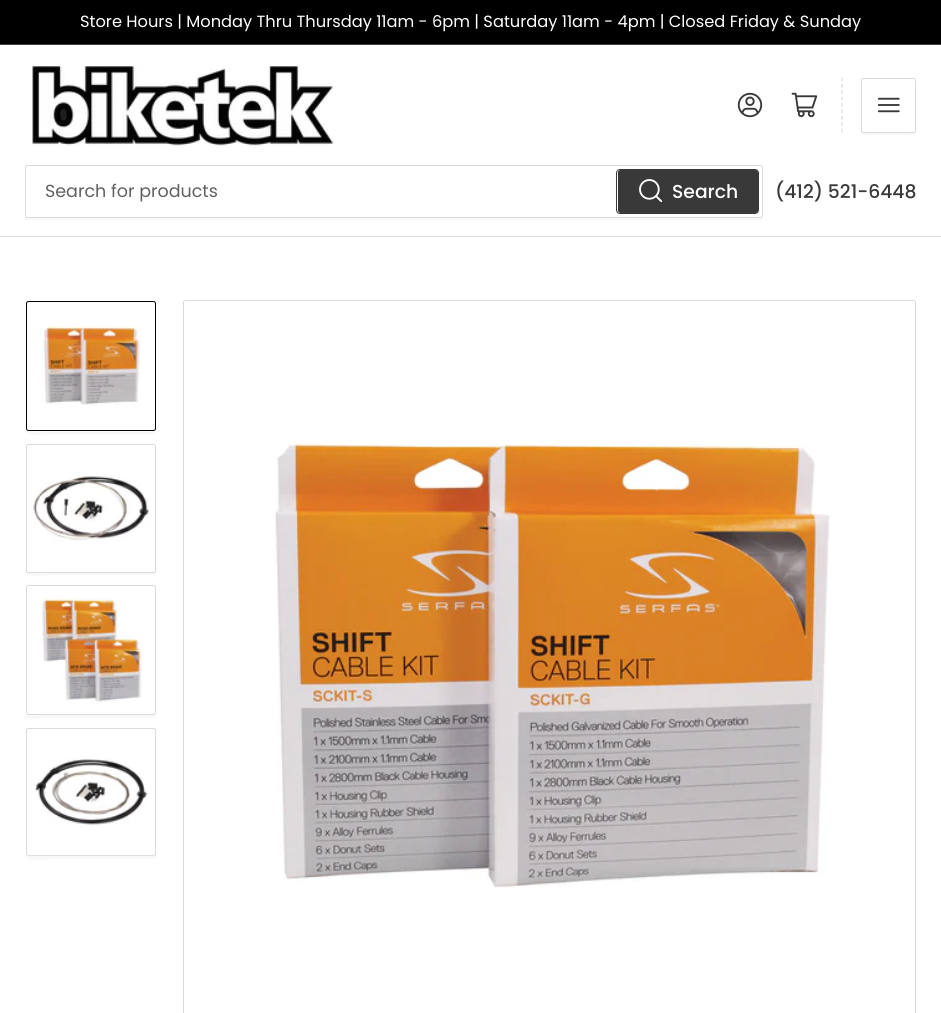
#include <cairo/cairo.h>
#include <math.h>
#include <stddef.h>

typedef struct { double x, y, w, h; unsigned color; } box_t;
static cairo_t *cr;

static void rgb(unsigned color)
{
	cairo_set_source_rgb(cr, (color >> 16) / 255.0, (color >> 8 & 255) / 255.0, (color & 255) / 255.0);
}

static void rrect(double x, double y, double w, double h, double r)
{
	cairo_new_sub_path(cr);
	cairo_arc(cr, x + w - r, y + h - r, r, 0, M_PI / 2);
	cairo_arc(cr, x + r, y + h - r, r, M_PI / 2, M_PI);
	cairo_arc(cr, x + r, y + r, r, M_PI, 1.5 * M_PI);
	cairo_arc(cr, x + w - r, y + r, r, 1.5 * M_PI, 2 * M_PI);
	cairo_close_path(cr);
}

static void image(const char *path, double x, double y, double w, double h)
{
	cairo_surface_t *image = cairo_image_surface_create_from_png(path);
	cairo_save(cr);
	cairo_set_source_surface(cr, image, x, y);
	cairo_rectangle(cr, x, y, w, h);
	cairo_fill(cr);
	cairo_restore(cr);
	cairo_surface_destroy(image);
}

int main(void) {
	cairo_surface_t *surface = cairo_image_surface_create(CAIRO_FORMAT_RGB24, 941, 1013);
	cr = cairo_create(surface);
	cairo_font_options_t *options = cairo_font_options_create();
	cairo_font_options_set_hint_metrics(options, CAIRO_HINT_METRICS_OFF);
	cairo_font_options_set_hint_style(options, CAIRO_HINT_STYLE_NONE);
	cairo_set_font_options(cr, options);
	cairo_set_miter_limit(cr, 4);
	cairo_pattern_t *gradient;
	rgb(0xffffff);
	cairo_paint(cr);
	{
		static const box_t items[] = {
			{0, 0, 941, 44, 0x000000},
			{0, 44, 941, 1, 0x404040},
			{0, 236, 941, 1, 0xdadada},
		};
		for (size_t i = 0; i < sizeof items / sizeof *items; i++) {
			rgb(items[i].color);
			cairo_rectangle(cr, items[i].x, items[i].y, items[i].w, items[i].h);
			cairo_fill(cr);
		}
	}
	image("img/1.png", 32, 66, 303, 80);
	image("img/2.png", 737, 92, 26, 26);
	image("img/3.png", 791, 92, 27, 26);
	cairo_new_path(cr);
	cairo_move_to(cr, 842, 77.5);
	cairo_line_to(cr, 842, 132.5);
	cairo_set_line_width(cr, 1.2);
	cairo_set_dash(cr, (double[]){3.75, 2.65}, 2, 0);
	cairo_stroke(cr);
	rgb(0xf8f8f8);
	cairo_new_path(cr);
	cairo_move_to(cr, 861, 81);
	cairo_line_to(cr, 861, 132);
	cairo_curve_to(cr, 861, 137, 871, 135, 872, 135);
	cairo_line_to(cr, 905, 135);
	cairo_curve_to(cr, 910, 135, 916, 137, 916, 131);
	cairo_curve_to(cr, 916, 132, 915, 132, 914, 132);
	cairo_line_to(cr, 864, 132);
	cairo_curve_to(cr, 862, 132, 861, 131, 861, 130);
	cairo_close_path(cr);
	cairo_fill(cr);
	rrect(861.5, 78.5, 54, 54, 2);
	rgb(0xdadada);
	cairo_set_line_width(cr, 1);
	cairo_set_dash(cr, NULL, 0, 0);
	cairo_stroke(cr);
	image("img/4.png", 877, 97, 23, 16);
	rgb(0xf8f8f8);
	cairo_new_path(cr);
	cairo_move_to(cr, 25, 215);
	cairo_line_to(cr, 25, 218);
	cairo_curve_to(cr, 25, 219, 26, 220, 28, 220);
	cairo_line_to(cr, 760, 220);
	cairo_curve_to(cr, 762, 220, 763, 219, 763, 218);
	cairo_line_to(cr, 763, 170);
	cairo_line_to(cr, 762, 169);
	cairo_line_to(cr, 762, 215);
	cairo_curve_to(cr, 762, 216, 761, 218, 760, 218);
	cairo_line_to(cr, 28, 218);
	cairo_curve_to(cr, 26, 218, 25, 216, 25, 215);
	cairo_close_path(cr);
	cairo_fill(cr);
	rgb(0xffffff);
	rrect(25.5, 165.5, 737, 52, 2);
	cairo_fill_preserve(cr);
	rgb(0xdadada);
	cairo_stroke(cr);
	rrect(616.5, 169.5, 142, 44, 3.5);
	rgb(0x393939);
	cairo_stroke(cr);
	rrect(618, 170, 140, 43, 2.5);
	cairo_fill(cr);
	image("img/5.png", 639, 179, 24, 24);
	rgb(0xf8f8f8);
	cairo_new_path(cr);
	cairo_move_to(cr, 26, 305);
	cairo_line_to(cr, 26, 432);
	cairo_curve_to(cr, 26, 438, 49, 434, 49, 434);
	cairo_line_to(cr, 154, 434);
	cairo_curve_to(cr, 156, 434, 156, 432, 156, 430);
	cairo_curve_to(cr, 156, 431, 155, 431, 154, 431);
	cairo_line_to(cr, 29, 431);
	cairo_curve_to(cr, 27, 431, 26, 430, 26, 429);
	cairo_close_path(cr);
	cairo_fill(cr);
	rrect(26.5, 301.5, 129, 129, 2);
	rgb(0x000000);
	cairo_stroke(cr);
	image("img/6.png", 42, 326, 99, 79);
	rgb(0xf8f8f8);
	cairo_new_path(cr);
	cairo_move_to(cr, 26, 447);
	cairo_line_to(cr, 26, 572);
	cairo_curve_to(cr, 26, 579, 49, 575, 49, 575);
	cairo_line_to(cr, 154, 575);
	cairo_curve_to(cr, 156, 575, 156, 573, 156, 571);
	cairo_curve_to(cr, 156, 572, 155, 572, 154, 572);
	cairo_line_to(cr, 29, 572);
	cairo_curve_to(cr, 27, 572, 26, 571, 26, 570);
	cairo_close_path(cr);
	cairo_fill(cr);
	rgb(0xffffff);
	rrect(26.5, 444.5, 129, 128, 2);
	cairo_fill_preserve(cr);
	rgb(0xdadada);
	cairo_stroke(cr);
	image("img/7.png", 33, 476, 117, 66);
	rgb(0xf8f8f8);
	cairo_new_path(cr);
	cairo_move_to(cr, 26, 589);
	cairo_line_to(cr, 26, 716);
	cairo_curve_to(cr, 26, 722, 49, 718, 49, 718);
	cairo_line_to(cr, 154, 718);
	cairo_curve_to(cr, 156, 718, 156, 715, 156, 714);
	cairo_curve_to(cr, 156, 714, 155, 715, 154, 715);
	cairo_line_to(cr, 29, 715);
	cairo_curve_to(cr, 27, 715, 26, 714, 26, 712);
	cairo_close_path(cr);
	cairo_fill(cr);
	rrect(26.5, 585.5, 129, 129, 2);
	rgb(0xdadada);
	cairo_stroke(cr);
	image("img/8.png", 42, 597, 100, 107);
	rgb(0xf8f8f8);
	cairo_new_path(cr);
	cairo_move_to(cr, 26, 731);
	cairo_line_to(cr, 26, 856);
	cairo_curve_to(cr, 26, 863, 49, 859, 49, 859);
	cairo_line_to(cr, 154, 859);
	cairo_curve_to(cr, 156, 859, 156, 857, 156, 855);
	cairo_curve_to(cr, 156, 856, 155, 856, 154, 856);
	cairo_line_to(cr, 29, 856);
	cairo_curve_to(cr, 27, 856, 26, 855, 26, 854);
	cairo_close_path(cr);
	cairo_fill(cr);
	rrect(26.5, 728.5, 129, 127, 2);
	rgb(0xdadada);
	cairo_stroke(cr);
	image("img/9.png", 34, 758, 114, 67);
	gradient = cairo_pattern_create_linear(91, 895, 91, 851);
	cairo_pattern_add_color_stop_rgba(gradient, 0, 1, 1, 1, 1);
	cairo_pattern_add_color_stop_rgba(gradient, 1, 1, 1, 1, 0);
	cairo_set_source(cr, gradient);
	cairo_pattern_destroy(gradient);
	cairo_rectangle(cr, 27, 855, 128, 1);
	cairo_fill(cr);
	rrect(183.5, 300.5, 732, 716, 2);
	rgb(0xdadada);
	cairo_stroke(cr);
	image("img/10.png", 275, 443, 555, 445);
	cairo_select_font_face(cr, "Poppins", CAIRO_FONT_SLANT_NORMAL, CAIRO_FONT_WEIGHT_NORMAL);
	cairo_set_font_size(cr, 16.25);
	rgb(0xffffff);
	cairo_move_to(cr, 80, 27);
	cairo_show_text(cr, "Store Hours | Monday Thru Thursday 11am - 6pm | Saturday 11am - 4pm | Closed Friday & Sunday");
	cairo_set_font_size(cr, 17.5);
	rgb(0x616161);
	cairo_move_to(cr, 45, 197);
	cairo_show_text(cr, "Search for products");
	cairo_select_font_face(cr, "Poppins Medium", CAIRO_FONT_SLANT_NORMAL, CAIRO_FONT_WEIGHT_NORMAL);
	cairo_set_font_size(cr, 18.75);
	rgb(0xffffff);
	cairo_move_to(cr, 672, 198);
	cairo_show_text(cr, "Search");
	rgb(0x393939);
	cairo_move_to(cr, 775, 198);
	cairo_show_text(cr, "(412) 521-6448");
	cairo_surface_write_to_png(surface, "page.png");
	cairo_font_options_destroy(options);
	cairo_destroy(cr);
	cairo_surface_destroy(surface);
	return 0;
}
